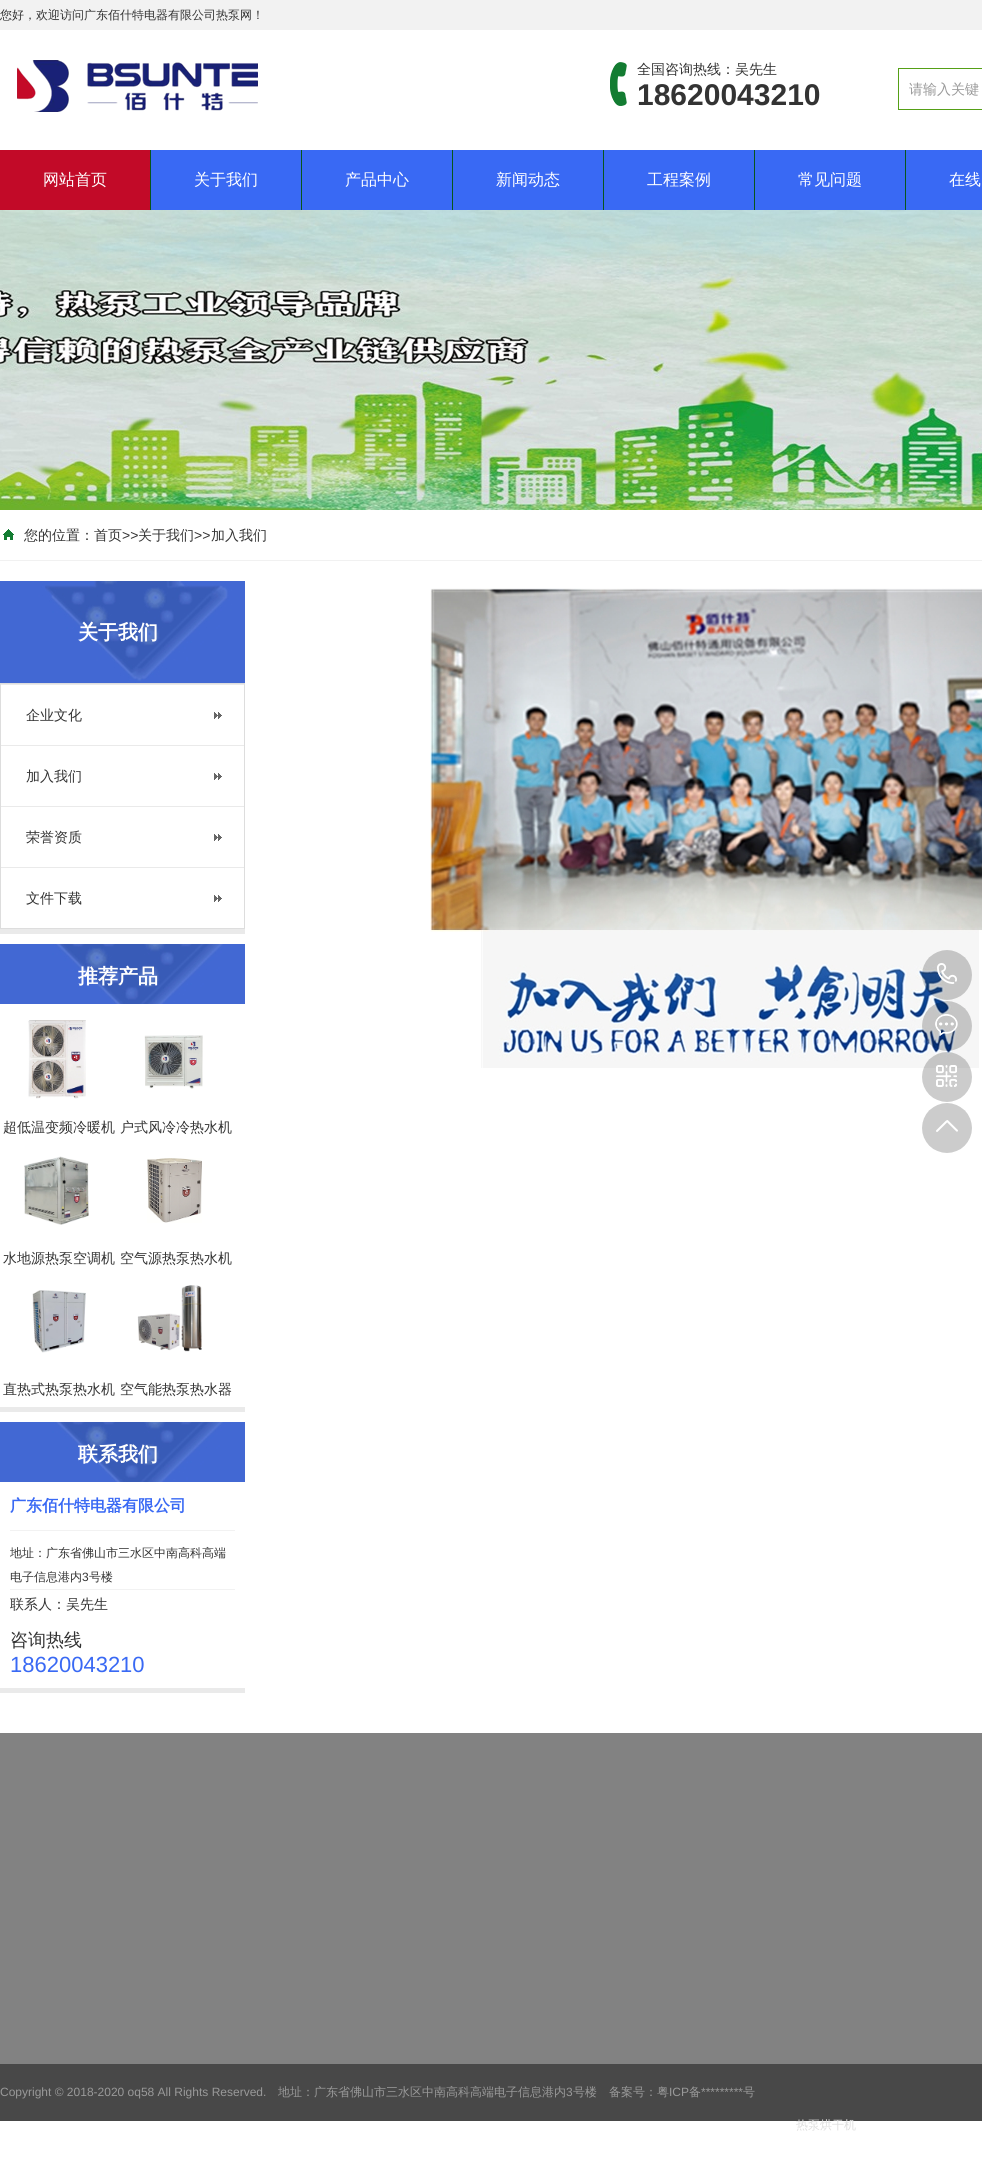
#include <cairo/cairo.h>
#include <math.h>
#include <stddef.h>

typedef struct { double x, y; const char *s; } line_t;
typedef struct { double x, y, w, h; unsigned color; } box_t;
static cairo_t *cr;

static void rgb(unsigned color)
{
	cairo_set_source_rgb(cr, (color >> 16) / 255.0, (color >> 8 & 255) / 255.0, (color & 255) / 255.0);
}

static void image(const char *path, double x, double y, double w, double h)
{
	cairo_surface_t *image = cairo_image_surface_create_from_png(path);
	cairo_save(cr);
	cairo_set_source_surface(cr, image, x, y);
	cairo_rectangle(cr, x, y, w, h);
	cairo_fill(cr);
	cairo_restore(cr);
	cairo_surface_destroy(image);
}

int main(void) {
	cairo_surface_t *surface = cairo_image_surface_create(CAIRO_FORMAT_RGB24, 982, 2159);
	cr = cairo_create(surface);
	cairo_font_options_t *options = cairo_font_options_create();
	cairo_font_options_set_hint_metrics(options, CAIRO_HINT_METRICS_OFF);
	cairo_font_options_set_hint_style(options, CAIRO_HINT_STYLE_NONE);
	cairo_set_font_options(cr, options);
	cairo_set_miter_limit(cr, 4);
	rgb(0xffffff);
	cairo_paint(cr);
	rgb(0xf2f2f2);
	cairo_rectangle(cr, 0, 0, 982, 30);
	cairo_fill(cr);
	image("img/1.png", 17, 60, 241, 52);
	image("img/2.png", 610, 62, 17, 44);
	cairo_rectangle(cr, 898.5, 68.5, 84, 41);
	rgb(0x55a016);
	cairo_set_line_width(cr, 1);
	cairo_stroke(cr);
	{
		static const box_t items[] = {
			{151, 150, 831, 60, 0x3969f4},
			{0, 150, 150, 60, 0xc20a28},
			{150, 150, 1, 60, 0x08561a},
			{301, 150, 1, 60, 0x08561a},
			{452, 150, 1, 60, 0x08561a},
			{603, 150, 1, 60, 0x08561a},
			{754, 150, 1, 60, 0x08561a},
			{905, 150, 1, 60, 0x08561a},
		};
		for (size_t i = 0; i < sizeof items / sizeof *items; i++) {
			rgb(items[i].color);
			cairo_rectangle(cr, items[i].x, items[i].y, items[i].w, items[i].h);
			cairo_fill(cr);
		}
	}
	image("img/3.png", 0, 210, 982, 300);
	rgb(0xf1f1f1);
	cairo_rectangle(cr, 0, 560, 982, 1);
	cairo_fill(cr);
	image("img/4.png", 3, 529, 11, 11);
	rgb(0xeaeaea);
	cairo_rectangle(cr, 0, 929, 245, 5);
	cairo_fill(cr);
	image("img/5.png", 0, 581, 245, 102);
	cairo_rectangle(cr, 0.5, 683.5, 244, 245);
	rgb(0xdddddd);
	cairo_stroke(cr);
	image("img/6.png", 214, 712, 8, 7);
	rgb(0xeaeaea);
	cairo_rectangle(cr, 1, 684, 243, 1);
	cairo_fill(cr);
	image("img/6.png", 214, 773, 8, 7);
	cairo_rectangle(cr, 1, 745, 243, 1);
	cairo_fill(cr);
	image("img/6.png", 214, 834, 8, 7);
	cairo_rectangle(cr, 1, 806, 243, 1);
	cairo_fill(cr);
	image("img/6.png", 214, 895, 8, 7);
	cairo_rectangle(cr, 1, 867, 243, 1);
	cairo_fill(cr);
	cairo_rectangle(cr, 0, 1407, 245, 5);
	cairo_fill(cr);
	image("img/7.png", 0, 944, 245, 60);
	image("img/8.png", 28, 1020, 58, 79);
	image("img/9.png", 144, 1035, 59, 54);
	image("img/10.png", 24, 1156, 65, 69);
	image("img/11.png", 147, 1158, 55, 65);
	image("img/12.png", 32, 1290, 54, 63);
	image("img/13.png", 137, 1285, 65, 67);
	cairo_rectangle(cr, 0, 1688, 245, 5);
	cairo_fill(cr);
	image("img/7.png", 0, 1422, 245, 60);
	rgb(0xf2f2f2);
	cairo_rectangle(cr, 10, 1530, 225, 1);
	cairo_fill(cr);
	cairo_rectangle(cr, 10, 1589, 225, 1);
	cairo_fill(cr);
	image("img/14.png", 430, 588, 552, 480);
	image("img/15.png", 922, 950, 50, 50);
	image("img/16.png", 937, 963, 20, 21);
	image("img/17.png", 922, 1001, 50, 50);
	image("img/18.png", 935, 1014, 23, 22);
	image("img/19.png", 922, 1052, 50, 50);
	image("img/20.png", 936, 1065, 21, 22);
	image("img/21.png", 922, 1103, 50, 50);
	image("img/22.png", 936, 1120, 22, 12);
	rgb(0x484848);
	cairo_rectangle(cr, 0, 2064, 982, 57);
	cairo_fill(cr);
	rgb(0x828282);
	cairo_rectangle(cr, 0, 1733, 982, 331);
	cairo_fill(cr);
	cairo_select_font_face(cr, "WenQuanYi Zen Hei Medium", CAIRO_FONT_SLANT_NORMAL, CAIRO_FONT_WEIGHT_NORMAL);
	cairo_set_font_size(cr, 12);
	rgb(0x333333);
	cairo_move_to(cr, 0, 19);
	cairo_show_text(cr, "您好，欢迎访问广东佰什特电器有限公司热泵网！");
	cairo_set_font_size(cr, 14);
	cairo_move_to(cr, 637, 74);
	cairo_show_text(cr, "全国咨询热线：吴先生");
	cairo_select_font_face(cr, "Liberation Sans", CAIRO_FONT_SLANT_NORMAL, CAIRO_FONT_WEIGHT_BOLD);
	cairo_set_font_size(cr, 30);
	cairo_move_to(cr, 637, 105);
	cairo_show_text(cr, "18620043210");
	cairo_select_font_face(cr, "WenQuanYi Zen Hei Medium", CAIRO_FONT_SLANT_NORMAL, CAIRO_FONT_WEIGHT_NORMAL);
	cairo_set_font_size(cr, 14);
	rgb(0x999999);
	cairo_move_to(cr, 909, 94);
	cairo_show_text(cr, "请输入关键");
	cairo_set_font_size(cr, 16);
	rgb(0xffffff);
	{
		static const line_t items[] = {
			{43, 185, "网站首页"},
			{194, 185, "关于我们"},
			{345, 185, "产品中心"},
			{496, 185, "新闻动态"},
			{647, 185, "工程案例"},
			{798, 185, "常见问题"},
			{949, 185, "在线"},
		};
		for (size_t i = 0; i < sizeof items / sizeof *items; i++) {
			cairo_move_to(cr, items[i].x, items[i].y);
			cairo_show_text(cr, items[i].s);
		}
	}
	cairo_set_font_size(cr, 14);
	rgb(0x333333);
	cairo_move_to(cr, 24, 540);
	cairo_show_text(cr, "您的位置：首页");
	cairo_select_font_face(cr, "Liberation Sans", CAIRO_FONT_SLANT_NORMAL, CAIRO_FONT_WEIGHT_NORMAL);
	cairo_move_to(cr, 122, 540);
	cairo_show_text(cr, ">>");
	cairo_select_font_face(cr, "WenQuanYi Zen Hei Medium", CAIRO_FONT_SLANT_NORMAL, CAIRO_FONT_WEIGHT_NORMAL);
	cairo_move_to(cr, 138, 540);
	cairo_show_text(cr, "关于我们");
	cairo_select_font_face(cr, "Liberation Sans", CAIRO_FONT_SLANT_NORMAL, CAIRO_FONT_WEIGHT_NORMAL);
	cairo_move_to(cr, 194, 540);
	cairo_show_text(cr, ">>");
	cairo_select_font_face(cr, "WenQuanYi Zen Hei Medium", CAIRO_FONT_SLANT_NORMAL, CAIRO_FONT_WEIGHT_NORMAL);
	cairo_move_to(cr, 211, 540);
	cairo_show_text(cr, "加入我们");
	cairo_select_font_face(cr, "WenQuanYi Zen Hei", CAIRO_FONT_SLANT_NORMAL, CAIRO_FONT_WEIGHT_BOLD);
	cairo_set_font_size(cr, 20);
	rgb(0xffffff);
	cairo_move_to(cr, 78, 639);
	cairo_show_text(cr, "关于我们");
	cairo_select_font_face(cr, "WenQuanYi Zen Hei Medium", CAIRO_FONT_SLANT_NORMAL, CAIRO_FONT_WEIGHT_NORMAL);
	cairo_set_font_size(cr, 14);
	rgb(0x333333);
	{
		static const line_t items[] = {
			{26, 720, "企业文化"},
			{26, 781, "加入我们"},
			{26, 842, "荣誉资质"},
			{26, 903, "文件下载"},
		};
		for (size_t i = 0; i < sizeof items / sizeof *items; i++) {
			cairo_move_to(cr, items[i].x, items[i].y);
			cairo_show_text(cr, items[i].s);
		}
	}
	cairo_select_font_face(cr, "WenQuanYi Zen Hei", CAIRO_FONT_SLANT_NORMAL, CAIRO_FONT_WEIGHT_BOLD);
	cairo_set_font_size(cr, 20);
	rgb(0xffffff);
	cairo_move_to(cr, 78, 983);
	cairo_show_text(cr, "推荐产品");
	cairo_select_font_face(cr, "WenQuanYi Zen Hei Medium", CAIRO_FONT_SLANT_NORMAL, CAIRO_FONT_WEIGHT_NORMAL);
	cairo_set_font_size(cr, 14);
	rgb(0x333333);
	{
		static const line_t items[] = {
			{3, 1132, "超低温变频冷暖机"},
			{120, 1132, "户式风冷冷热水机"},
			{3, 1263, "水地源热泵空调机"},
			{120, 1263, "空气源热泵热水机"},
			{3, 1394, "直热式热泵热水机"},
			{120, 1394, "空气能热泵热水器"},
		};
		for (size_t i = 0; i < sizeof items / sizeof *items; i++) {
			cairo_move_to(cr, items[i].x, items[i].y);
			cairo_show_text(cr, items[i].s);
		}
	}
	cairo_select_font_face(cr, "WenQuanYi Zen Hei", CAIRO_FONT_SLANT_NORMAL, CAIRO_FONT_WEIGHT_BOLD);
	cairo_set_font_size(cr, 20);
	rgb(0xffffff);
	cairo_move_to(cr, 78, 1461);
	cairo_show_text(cr, "联系我们");
	cairo_set_font_size(cr, 16);
	rgb(0x3969f4);
	cairo_move_to(cr, 10, 1511);
	cairo_show_text(cr, "广东佰什特电器有限公司");
	cairo_select_font_face(cr, "WenQuanYi Zen Hei Medium", CAIRO_FONT_SLANT_NORMAL, CAIRO_FONT_WEIGHT_NORMAL);
	cairo_set_font_size(cr, 12);
	rgb(0x333333);
	cairo_move_to(cr, 10, 1557);
	cairo_show_text(cr, "地址：广东省佛山市三水区中南高科高端");
	cairo_move_to(cr, 10, 1581);
	cairo_show_text(cr, "电子信息港内");
	cairo_select_font_face(cr, "Liberation Sans", CAIRO_FONT_SLANT_NORMAL, CAIRO_FONT_WEIGHT_NORMAL);
	cairo_move_to(cr, 82, 1581);
	cairo_show_text(cr, "3");
	cairo_select_font_face(cr, "WenQuanYi Zen Hei Medium", CAIRO_FONT_SLANT_NORMAL, CAIRO_FONT_WEIGHT_NORMAL);
	cairo_move_to(cr, 89, 1581);
	cairo_show_text(cr, "号楼");
	cairo_set_font_size(cr, 14);
	cairo_move_to(cr, 10, 1609);
	cairo_show_text(cr, "联系人：吴先生");
	cairo_set_font_size(cr, 18);
	cairo_move_to(cr, 10, 1646);
	cairo_show_text(cr, "咨询热线");
	cairo_select_font_face(cr, "Liberation Sans", CAIRO_FONT_SLANT_NORMAL, CAIRO_FONT_WEIGHT_NORMAL);
	cairo_set_font_size(cr, 22);
	rgb(0x3969f4);
	cairo_move_to(cr, 10, 1672);
	cairo_show_text(cr, "18620043210");
	cairo_set_font_size(cr, 12);
	rgb(0x999999);
	cairo_move_to(cr, 0, 2096);
	cairo_show_text(cr, "Copyright © 2018-2020 oq58 All Rights Reserved.");
	cairo_select_font_face(cr, "WenQuanYi Zen Hei Medium", CAIRO_FONT_SLANT_NORMAL, CAIRO_FONT_WEIGHT_NORMAL);
	cairo_move_to(cr, 278, 2096);
	cairo_show_text(cr, "地址：广东省佛山市三水区中南高科高端电子信息港内");
	cairo_select_font_face(cr, "Liberation Sans", CAIRO_FONT_SLANT_NORMAL, CAIRO_FONT_WEIGHT_NORMAL);
	cairo_move_to(cr, 566, 2096);
	cairo_show_text(cr, "3");
	cairo_select_font_face(cr, "WenQuanYi Zen Hei Medium", CAIRO_FONT_SLANT_NORMAL, CAIRO_FONT_WEIGHT_NORMAL);
	cairo_move_to(cr, 573, 2096);
	cairo_show_text(cr, "号楼　备案号：粤");
	cairo_select_font_face(cr, "Liberation Sans", CAIRO_FONT_SLANT_NORMAL, CAIRO_FONT_WEIGHT_NORMAL);
	cairo_move_to(cr, 669, 2096);
	cairo_show_text(cr, "ICP");
	cairo_select_font_face(cr, "WenQuanYi Zen Hei Medium", CAIRO_FONT_SLANT_NORMAL, CAIRO_FONT_WEIGHT_NORMAL);
	cairo_move_to(cr, 689, 2096);
	cairo_show_text(cr, "备");
	cairo_select_font_face(cr, "Liberation Sans", CAIRO_FONT_SLANT_NORMAL, CAIRO_FONT_WEIGHT_NORMAL);
	cairo_move_to(cr, 701, 2096);
	cairo_show_text(cr, "*********");
	cairo_select_font_face(cr, "WenQuanYi Zen Hei Medium", CAIRO_FONT_SLANT_NORMAL, CAIRO_FONT_WEIGHT_NORMAL);
	cairo_move_to(cr, 743, 2096);
	cairo_show_text(cr, "号");
	rgb(0xdfdfdf);
	cairo_move_to(cr, 796, 2129);
	cairo_show_text(cr, "热泵烘干机");
	cairo_surface_write_to_png(surface, "page.png");
	cairo_font_options_destroy(options);
	cairo_destroy(cr);
	cairo_surface_destroy(surface);
	return 0;
}
